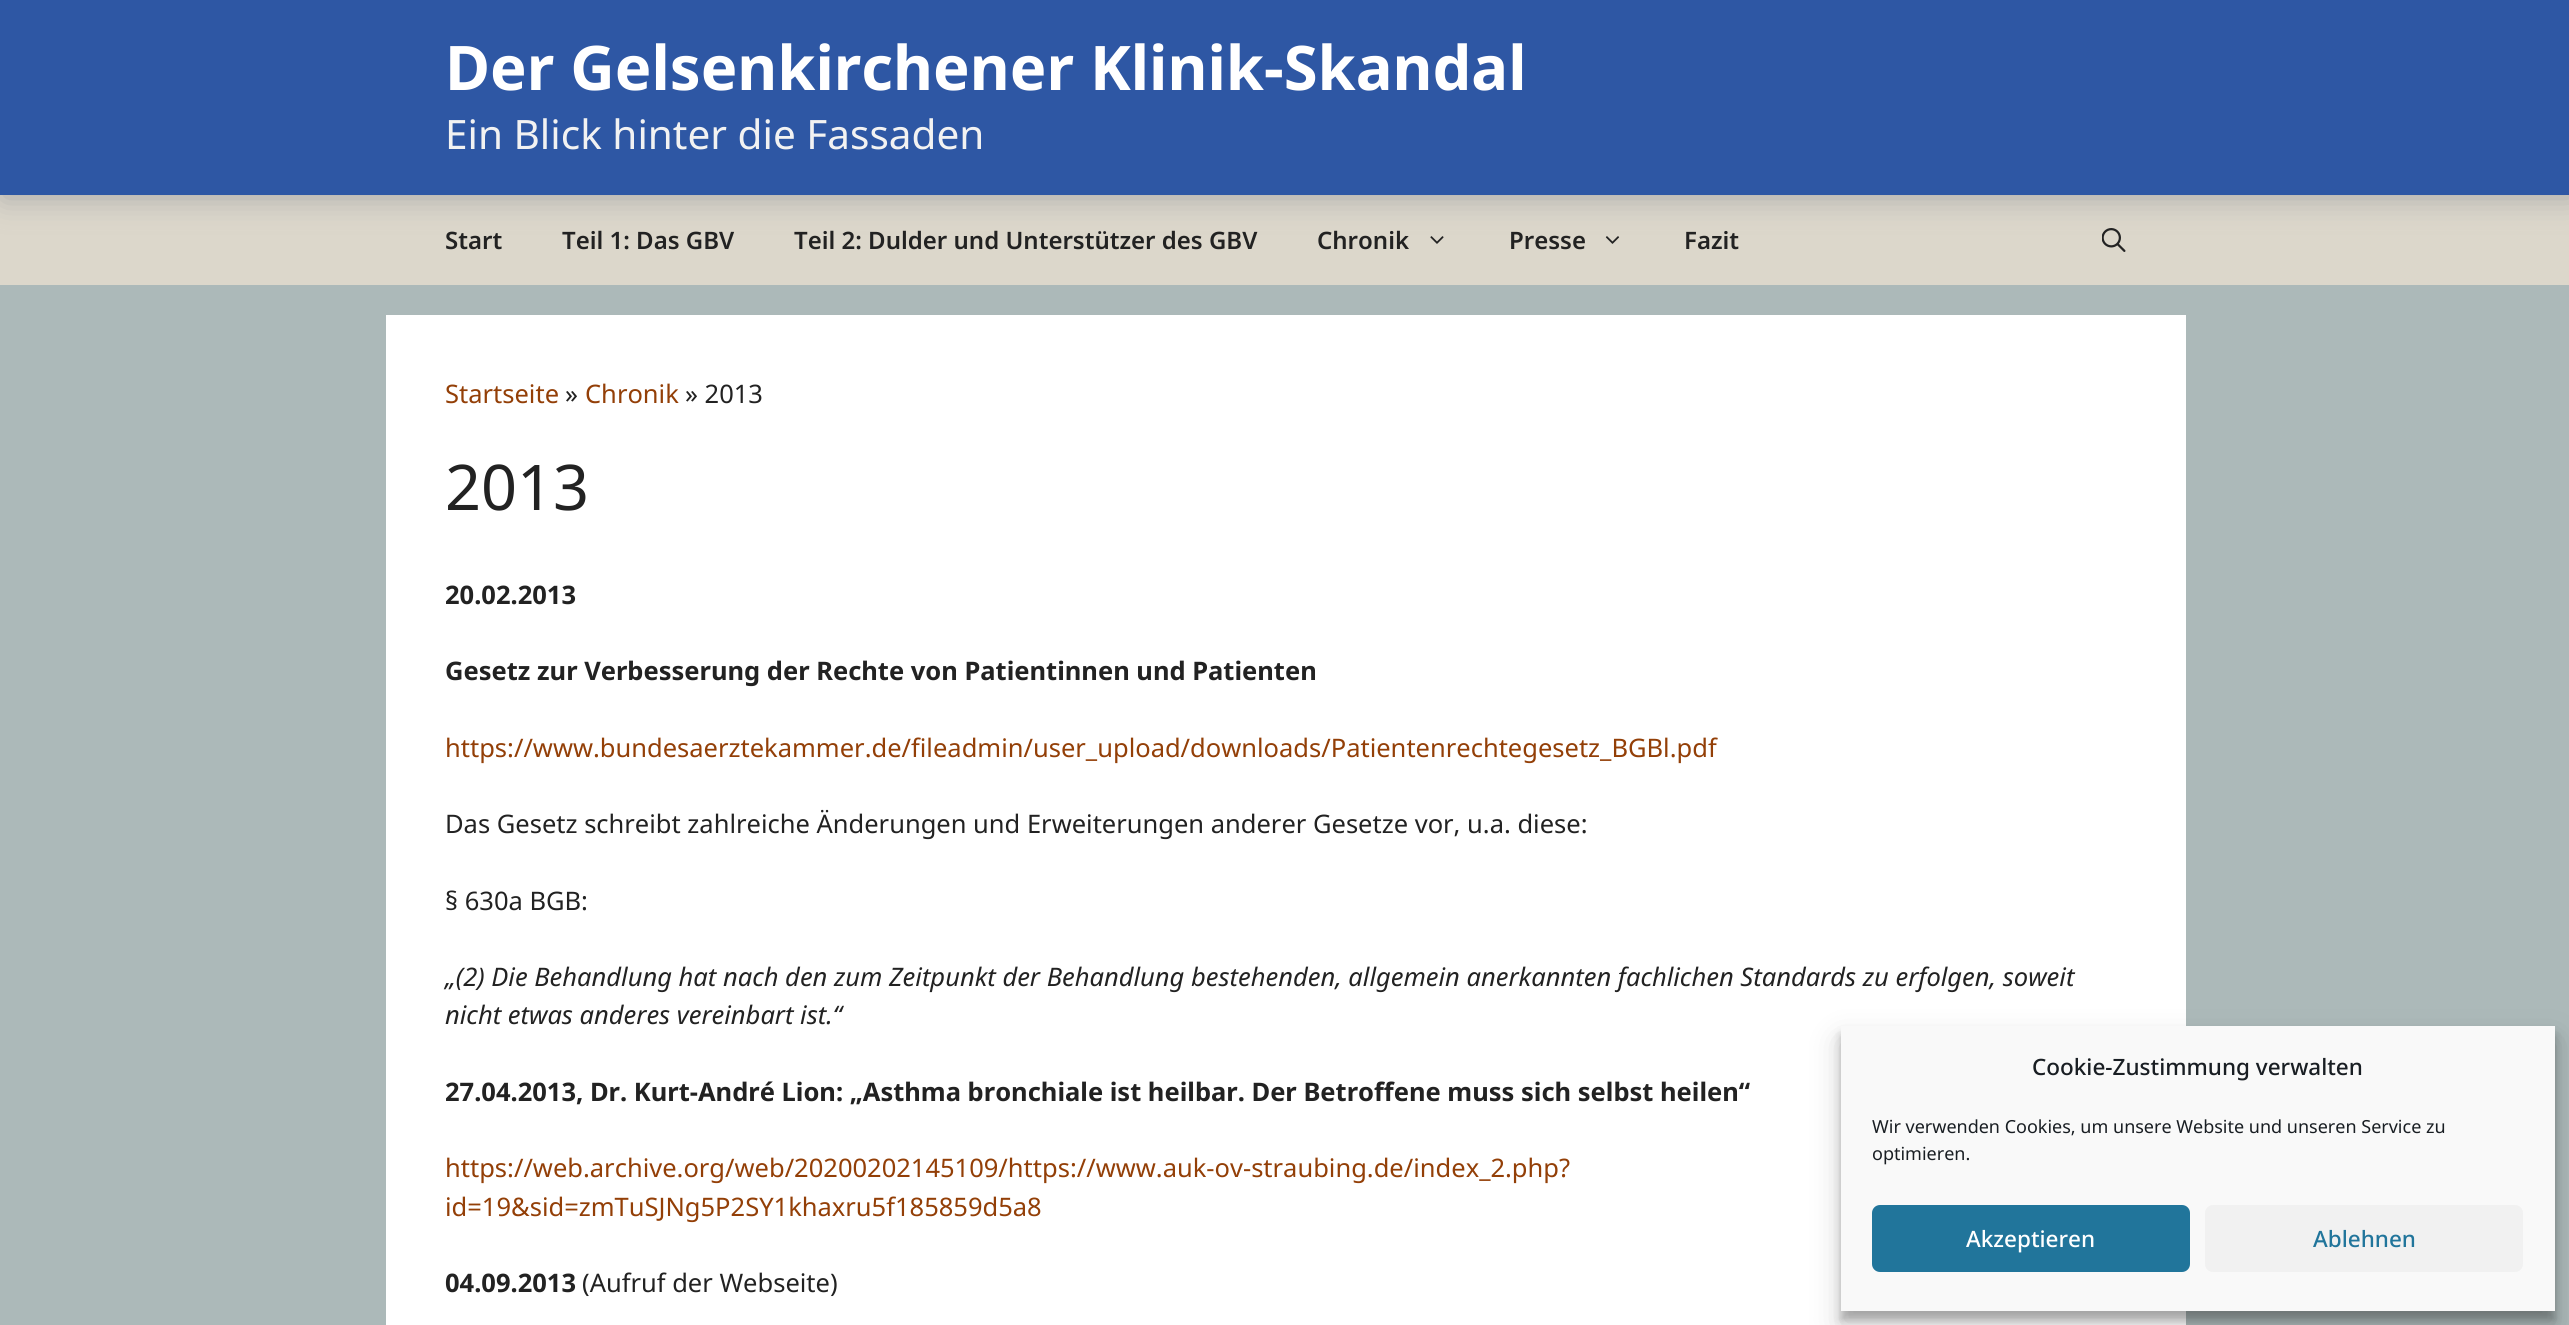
#include <cairo/cairo.h>
#include <math.h>
#include <stddef.h>

typedef struct { double x, y; const char *s; } line_t;
static cairo_t *cr;

static void rgb(unsigned color)
{
	cairo_set_source_rgb(cr, (color >> 16) / 255.0, (color >> 8 & 255) / 255.0, (color & 255) / 255.0);
}

static void rrect(double x, double y, double w, double h, double r)
{
	cairo_new_sub_path(cr);
	cairo_arc(cr, x + w - r, y + h - r, r, 0, M_PI / 2);
	cairo_arc(cr, x + r, y + h - r, r, M_PI / 2, M_PI);
	cairo_arc(cr, x + r, y + r, r, M_PI, 1.5 * M_PI);
	cairo_arc(cr, x + w - r, y + r, r, 1.5 * M_PI, 2 * M_PI);
	cairo_close_path(cr);
}

static void soft_shadow(double x, double y, double w, double h, double r, double blur, double alpha)
{
	cairo_push_group_with_content(cr, CAIRO_CONTENT_ALPHA);
	cairo_set_operator(cr, CAIRO_OPERATOR_SOURCE);
	for (int i = 15; i >= -15 && fmin(w, h) + blur * i / 3 > 0; i -= 2) {
		double e = blur * i / 6;
		cairo_set_source_rgba(cr, 0, 0, 0, alpha * erfc((i - 1) / 8.5) / 2);
		rrect(x - e, y - e, w + 2 * e, h + 2 * e, fmax(0, fmin(r + e + blur * .6, fmin(w, h) / 2 + e)));
		cairo_fill(cr);
	}
	cairo_pattern_t *soft = cairo_pop_group(cr);
	cairo_mask(cr, soft);
	cairo_pattern_destroy(soft);
}

static void image(const char *path, double x, double y, double w, double h)
{
	cairo_surface_t *image = cairo_image_surface_create_from_png(path);
	cairo_save(cr);
	cairo_set_source_surface(cr, image, x, y);
	cairo_rectangle(cr, x, y, w, h);
	cairo_fill(cr);
	cairo_restore(cr);
	cairo_surface_destroy(image);
}

int main(void) {
	cairo_surface_t *surface = cairo_image_surface_create(CAIRO_FORMAT_RGB24, 2569, 1325);
	cr = cairo_create(surface);
	cairo_font_options_t *options = cairo_font_options_create();
	cairo_font_options_set_hint_metrics(options, CAIRO_HINT_METRICS_OFF);
	cairo_font_options_set_hint_style(options, CAIRO_HINT_STYLE_NONE);
	cairo_set_font_options(cr, options);
	cairo_set_miter_limit(cr, 4);
	rgb(0xacb9b9);
	cairo_paint(cr);
	rgb(0xdcd7cb);
	cairo_rectangle(cr, 0, 195, 2569, 90);
	cairo_fill(cr);
	rgb(0xaaaaaa);
	soft_shadow(3, 3, 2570, 195, 0, 15, 1);
	rgb(0x2e57a4);
	cairo_rectangle(cr, 0, 0, 2569, 195);
	cairo_fill(cr);
	image("img/1.png", 1430, 236, 14, 8);
	image("img/2.png", 1605, 236, 15, 8);
	image("img/3.png", 2102, 228, 24, 24);
	rgb(0xffffff);
	cairo_rectangle(cr, 386, 315, 1800, 1010);
	cairo_fill(cr);
	rgb(0x000000);
	soft_shadow(1841, 1035, 714, 285, 0, 4.5, 0.23);
	soft_shadow(1841, 1041, 714, 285, 0, 15, 0.19);
	rgb(0xf9f9f9);
	cairo_rectangle(cr, 1841, 1026, 714, 285);
	cairo_fill(cr);
	rgb(0x21759b);
	rrect(1873, 1206, 316, 65, 7);
	cairo_fill_preserve(cr);
	cairo_stroke(cr);
	rgb(0xf1f1f1);
	rrect(2205, 1205, 318, 67, 8);
	cairo_fill(cr);
	cairo_select_font_face(cr, "Noto Sans", CAIRO_FONT_SLANT_NORMAL, CAIRO_FONT_WEIGHT_BOLD);
	cairo_set_font_size(cr, 61.5);
	rgb(0xffffff);
	cairo_move_to(cr, 445, 90);
	cairo_show_text(cr, "Der Gelsenkirchener Klinik-Skandal");
	cairo_select_font_face(cr, "Noto Sans", CAIRO_FONT_SLANT_NORMAL, CAIRO_FONT_WEIGHT_NORMAL);
	cairo_set_font_size(cr, 40.5);
	rgb(0xf2f2f2);
	cairo_move_to(cr, 445, 149);
	cairo_show_text(cr, "Ein Blick hinter die Fassaden");
	cairo_select_font_face(cr, "Noto Sans SemiBold", CAIRO_FONT_SLANT_NORMAL, CAIRO_FONT_WEIGHT_NORMAL);
	cairo_set_font_size(cr, 24);
	rgb(0x222222);
	{
		static const line_t items[] = {
			{445, 249, "Start"},
			{562, 249, "Teil 1: Das GBV"},
			{794, 249, "Teil 2: Dulder und Unterstützer des GBV"},
			{1317, 249, "Chronik"},
			{1509, 249, "Presse"},
			{1684, 249, "Fazit"},
		};
		for (size_t i = 0; i < sizeof items / sizeof *items; i++) {
			cairo_move_to(cr, items[i].x, items[i].y);
			cairo_show_text(cr, items[i].s);
		}
	}
	cairo_select_font_face(cr, "Noto Sans", CAIRO_FONT_SLANT_NORMAL, CAIRO_FONT_WEIGHT_NORMAL);
	cairo_set_font_size(cr, 25.5);
	rgb(0x933f07);
	cairo_move_to(cr, 445, 403);
	cairo_show_text(cr, "Startseite");
	rgb(0x222222);
	cairo_move_to(cr, 565, 403);
	cairo_show_text(cr, "»");
	rgb(0x933f07);
	cairo_move_to(cr, 585, 403);
	cairo_show_text(cr, "Chronik");
	rgb(0x222222);
	cairo_move_to(cr, 685, 403);
	cairo_show_text(cr, "» 2013");
	cairo_set_font_size(cr, 63);
	cairo_move_to(cr, 445, 510);
	cairo_show_text(cr, "2013");
	cairo_select_font_face(cr, "Noto Sans", CAIRO_FONT_SLANT_NORMAL, CAIRO_FONT_WEIGHT_BOLD);
	cairo_set_font_size(cr, 25.5);
	cairo_move_to(cr, 445, 604);
	cairo_show_text(cr, "20.02.2013");
	cairo_move_to(cr, 445, 680);
	cairo_show_text(cr, "Gesetz zur Verbesserung der Rechte von Patientinnen und Patienten");
	cairo_select_font_face(cr, "Noto Sans", CAIRO_FONT_SLANT_NORMAL, CAIRO_FONT_WEIGHT_NORMAL);
	rgb(0x933f07);
	cairo_move_to(cr, 445, 757);
	cairo_show_text(cr, "https://www.bundesaerztekammer.de/fileadmin/user_upload/downloads/Patientenrechtegesetz_BGBl.pdf");
	rgb(0x222222);
	cairo_move_to(cr, 445, 833);
	cairo_show_text(cr, "Das Gesetz schreibt zahlreiche Änderungen und Erweiterungen anderer Gesetze vor, u.a. diese:");
	cairo_move_to(cr, 445, 910);
	cairo_show_text(cr, "§ 630a BGB:");
	cairo_select_font_face(cr, "Noto Sans", CAIRO_FONT_SLANT_ITALIC, CAIRO_FONT_WEIGHT_NORMAL);
	cairo_move_to(cr, 445, 986);
	cairo_show_text(cr, "„(2) Die Behandlung hat nach den zum Zeitpunkt der Behandlung bestehenden, allgemein anerkannten fachlichen Standards zu erfolgen, soweit");
	cairo_move_to(cr, 445, 1024);
	cairo_show_text(cr, "nicht etwas anderes vereinbart ist.“");
	cairo_select_font_face(cr, "Noto Sans", CAIRO_FONT_SLANT_NORMAL, CAIRO_FONT_WEIGHT_BOLD);
	cairo_move_to(cr, 445, 1101);
	cairo_show_text(cr, "27.04.2013, Dr. Kurt-André Lion: „Asthma bronchiale ist heilbar. Der Betroffene muss sich selbst heilen“");
	cairo_select_font_face(cr, "Noto Sans", CAIRO_FONT_SLANT_NORMAL, CAIRO_FONT_WEIGHT_NORMAL);
	rgb(0x933f07);
	cairo_move_to(cr, 445, 1177);
	cairo_show_text(cr, "https://web.archive.org/web/20200202145109/https://www.auk-ov-straubing.de/index_2.php?");
	cairo_move_to(cr, 445, 1216);
	cairo_show_text(cr, "id=19&sid=zmTuSJNg5P2SY1khaxru5f185859d5a8");
	cairo_select_font_face(cr, "Noto Sans", CAIRO_FONT_SLANT_NORMAL, CAIRO_FONT_WEIGHT_BOLD);
	rgb(0x222222);
	cairo_move_to(cr, 445, 1292);
	cairo_show_text(cr, "04.09.2013");
	cairo_select_font_face(cr, "Noto Sans", CAIRO_FONT_SLANT_NORMAL, CAIRO_FONT_WEIGHT_NORMAL);
	cairo_move_to(cr, 582, 1292);
	cairo_show_text(cr, "(Aufruf der Webseite)");
	cairo_select_font_face(cr, "Noto Sans Medium", CAIRO_FONT_SLANT_NORMAL, CAIRO_FONT_WEIGHT_NORMAL);
	cairo_set_font_size(cr, 22.5);
	rgb(0x191e23);
	cairo_move_to(cr, 2032, 1075);
	cairo_show_text(cr, "Cookie-Zustimmung verwalten");
	cairo_select_font_face(cr, "Noto Sans", CAIRO_FONT_SLANT_NORMAL, CAIRO_FONT_WEIGHT_NORMAL);
	cairo_set_font_size(cr, 18);
	cairo_move_to(cr, 1872, 1133);
	cairo_show_text(cr, "Wir verwenden Cookies, um unsere Website und unseren Service zu");
	cairo_move_to(cr, 1872, 1160);
	cairo_show_text(cr, "optimieren.");
	cairo_select_font_face(cr, "Noto Sans Medium", CAIRO_FONT_SLANT_NORMAL, CAIRO_FONT_WEIGHT_NORMAL);
	cairo_set_font_size(cr, 22.5);
	rgb(0xffffff);
	cairo_move_to(cr, 1966, 1247);
	cairo_show_text(cr, "Akzeptieren");
	rgb(0x21759b);
	cairo_move_to(cr, 2313, 1247);
	cairo_show_text(cr, "Ablehnen");
	cairo_surface_write_to_png(surface, "page.png");
	cairo_font_options_destroy(options);
	cairo_destroy(cr);
	cairo_surface_destroy(surface);
	return 0;
}
